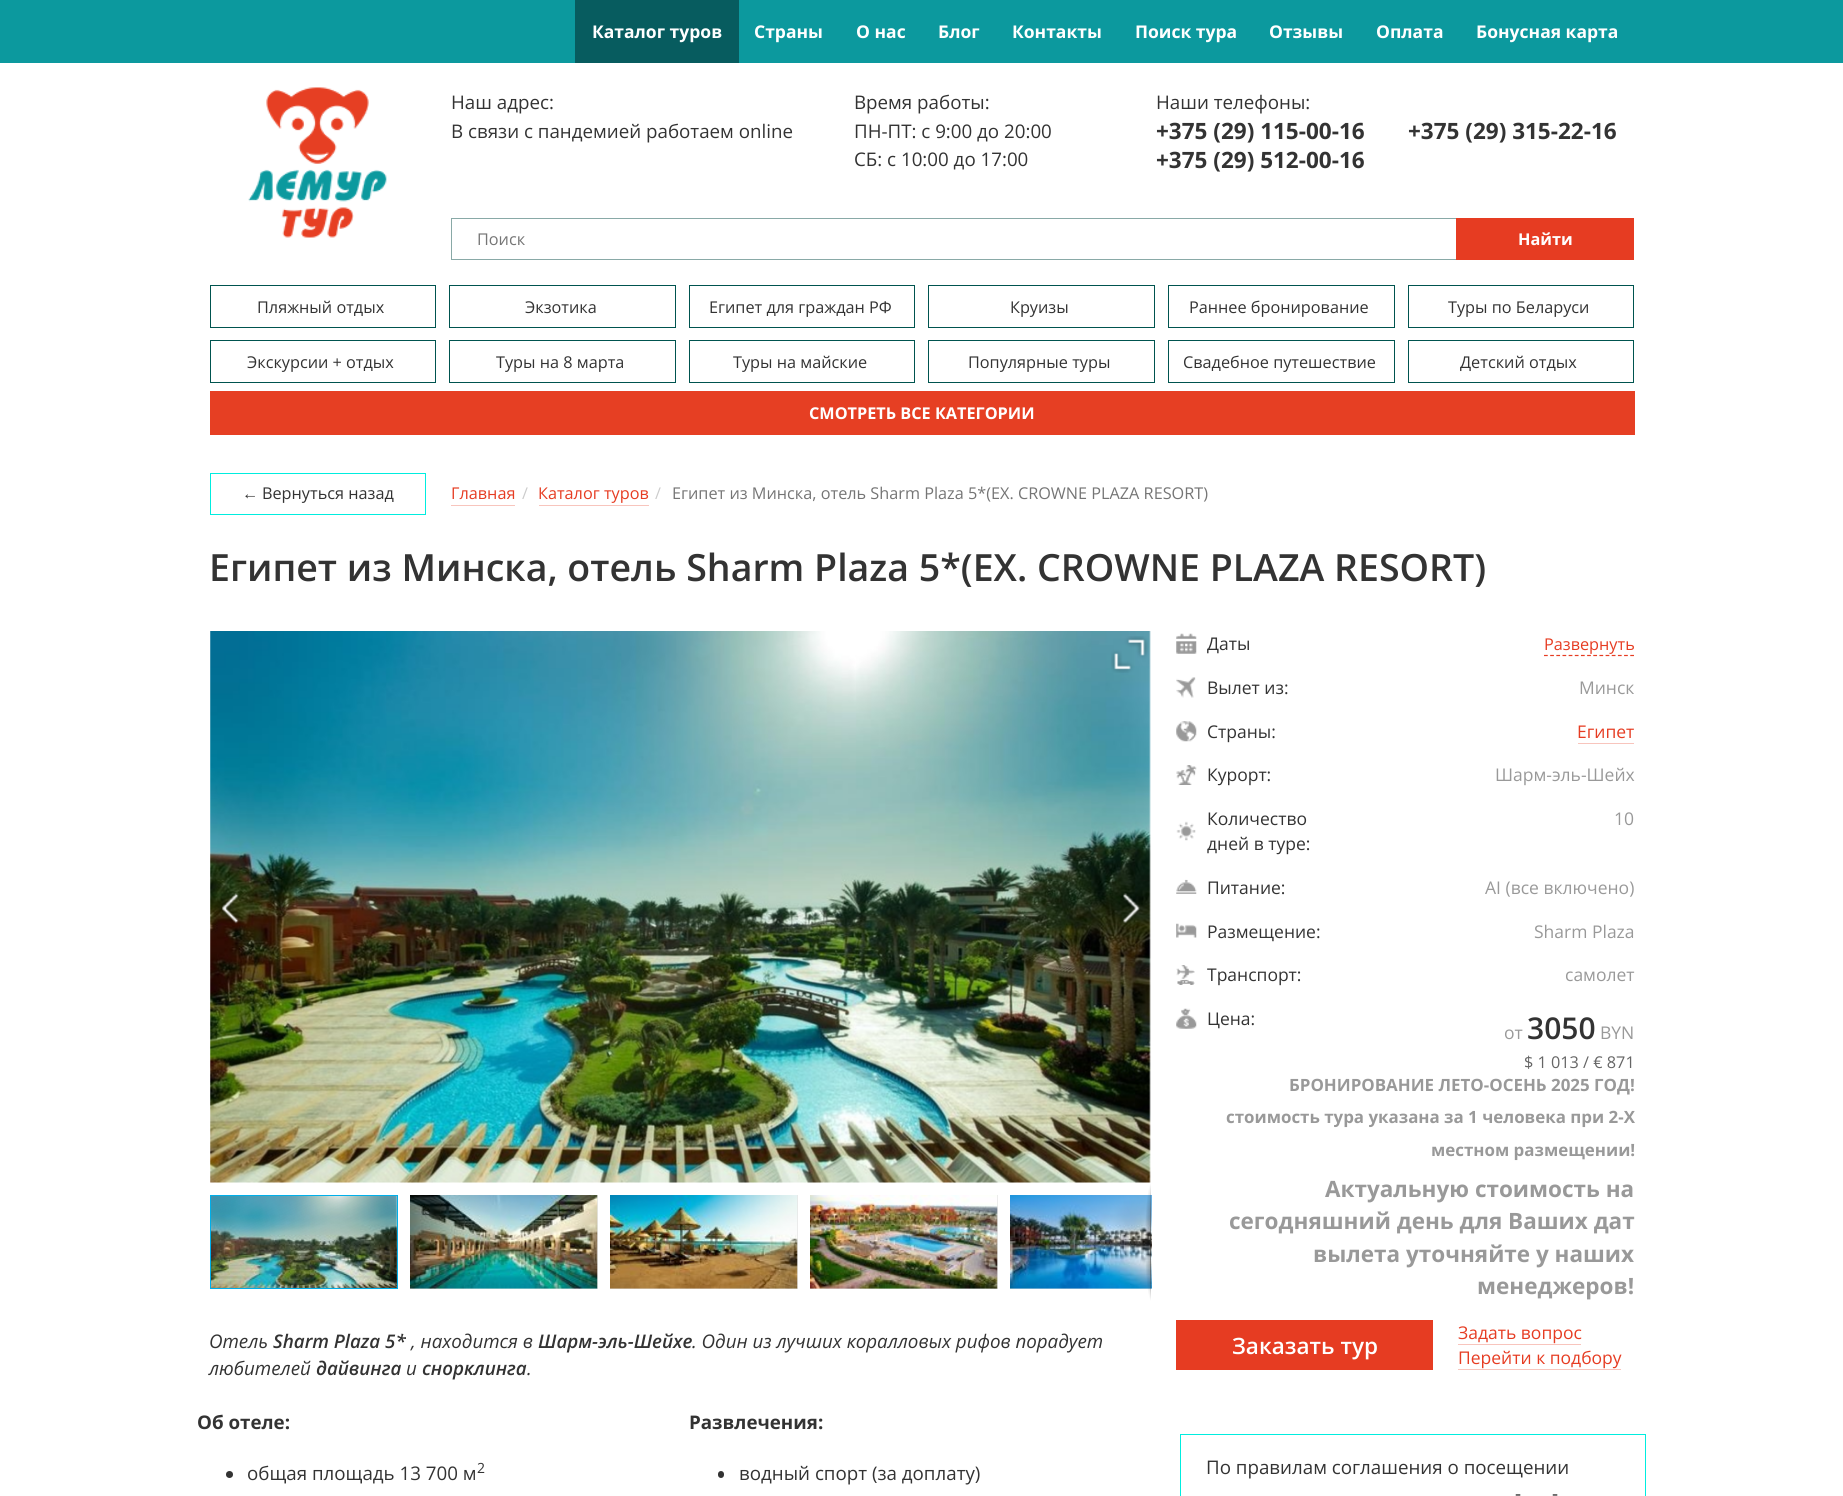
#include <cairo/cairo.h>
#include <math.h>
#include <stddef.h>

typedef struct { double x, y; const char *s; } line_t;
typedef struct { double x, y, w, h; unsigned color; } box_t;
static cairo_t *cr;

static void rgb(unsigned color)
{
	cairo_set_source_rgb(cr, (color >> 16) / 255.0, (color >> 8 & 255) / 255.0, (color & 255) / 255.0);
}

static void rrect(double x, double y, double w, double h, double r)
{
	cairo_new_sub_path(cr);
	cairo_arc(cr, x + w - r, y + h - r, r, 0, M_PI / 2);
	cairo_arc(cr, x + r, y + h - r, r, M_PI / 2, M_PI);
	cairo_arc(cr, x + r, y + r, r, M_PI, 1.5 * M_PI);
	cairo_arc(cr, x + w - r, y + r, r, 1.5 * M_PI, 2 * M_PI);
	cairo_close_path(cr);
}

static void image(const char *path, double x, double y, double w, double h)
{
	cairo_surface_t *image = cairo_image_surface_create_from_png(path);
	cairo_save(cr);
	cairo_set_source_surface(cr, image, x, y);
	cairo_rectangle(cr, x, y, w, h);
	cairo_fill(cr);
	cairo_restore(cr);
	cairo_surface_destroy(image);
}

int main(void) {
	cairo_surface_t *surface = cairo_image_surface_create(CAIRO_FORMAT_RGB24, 1843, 1496);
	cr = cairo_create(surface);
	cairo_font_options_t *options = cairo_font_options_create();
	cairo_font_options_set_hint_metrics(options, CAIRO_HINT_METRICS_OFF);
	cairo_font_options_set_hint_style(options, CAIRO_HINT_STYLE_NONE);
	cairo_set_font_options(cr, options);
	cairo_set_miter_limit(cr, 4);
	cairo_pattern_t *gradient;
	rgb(0xffffff);
	cairo_paint(cr);
	rgb(0x0c999e);
	cairo_rectangle(cr, 0, 0, 1843, 63);
	cairo_fill(cr);
	rgb(0x075c5f);
	cairo_rectangle(cr, 575, 0, 164, 63);
	cairo_fill(cr);
	image("img/1.png", 248, 87, 139, 151);
	cairo_rectangle(cr, 451.5, 218.5, 1182, 41);
	rgb(0x89a9a7);
	cairo_set_line_width(cr, 1);
	cairo_stroke(cr);
	rgb(0xe63c22);
	cairo_rectangle(cr, 1456, 218, 178, 42);
	cairo_fill(cr);
	cairo_rectangle(cr, 210.5, 285.5, 225, 42);
	rgb(0x00544f);
	cairo_stroke(cr);
	cairo_rectangle(cr, 449.5, 285.5, 226, 42);
	cairo_stroke(cr);
	cairo_rectangle(cr, 689.5, 285.5, 225, 42);
	cairo_stroke(cr);
	cairo_rectangle(cr, 928.5, 285.5, 226, 42);
	cairo_stroke(cr);
	cairo_rectangle(cr, 1168.5, 285.5, 226, 42);
	cairo_stroke(cr);
	cairo_rectangle(cr, 1408.5, 285.5, 225, 42);
	cairo_stroke(cr);
	cairo_rectangle(cr, 210.5, 340.5, 225, 42);
	cairo_stroke(cr);
	cairo_rectangle(cr, 449.5, 340.5, 226, 42);
	cairo_stroke(cr);
	cairo_rectangle(cr, 689.5, 340.5, 225, 42);
	cairo_stroke(cr);
	cairo_rectangle(cr, 928.5, 340.5, 226, 42);
	cairo_stroke(cr);
	cairo_rectangle(cr, 1168.5, 340.5, 226, 42);
	cairo_stroke(cr);
	cairo_rectangle(cr, 1408.5, 340.5, 225, 42);
	cairo_stroke(cr);
	rgb(0xe63f23);
	cairo_rectangle(cr, 210, 391, 1425, 44);
	cairo_fill(cr);
	cairo_rectangle(cr, 210.5, 473.5, 215, 41);
	rgb(0x00eddf);
	cairo_stroke(cr);
	rgb(0xf8c5bd);
	cairo_rectangle(cr, 451, 505, 64, 1);
	cairo_fill(cr);
	cairo_rectangle(cr, 539, 505, 110, 1);
	cairo_fill(cr);
	image("img/2.png", 210, 631, 941, 552);
	image("img/3.png", 1111, 636, 37, 37);
	image("img/4.png", 222, 893, 17, 31);
	image("img/5.png", 1123, 893, 17, 31);
	rgb(0xe5e5e5);
	cairo_rectangle(cr, 1010, 1288, 141, 1);
	cairo_fill(cr);
	image("img/9.png", 1010, 1195, 142, 94);
	gradient = cairo_pattern_create_radial(0, 0, 0, 0, 0, 1);
	cairo_pattern_set_matrix(gradient, &(cairo_matrix_t){1.0 / 6.2, 0, 0, 1.0 / 59, -1.0 * 1151 / 6.2, -1.0 * 1242 / 59});
	cairo_pattern_add_color_stop_rgba(gradient, 0, 0, 0, 0, 0.4);
	cairo_pattern_add_color_stop_rgba(gradient, 1, 0, 0, 0, 0);
	cairo_set_source(cr, gradient);
	cairo_pattern_destroy(gradient);
	cairo_rectangle(cr, 1145, 1183, 6, 118);
	cairo_fill(cr);
	gradient = cairo_pattern_create_linear(1151, 1183, 1151, 1301);
	cairo_pattern_add_color_stop_rgba(gradient, 0, 0, 0, 0, 0);
	cairo_pattern_add_color_stop_rgba(gradient, 0.25, 0, 0, 0, 0.2);
	cairo_pattern_add_color_stop_rgba(gradient, 0.75, 0, 0, 0, 0.3);
	cairo_pattern_add_color_stop_rgba(gradient, 1, 0, 0, 0, 0);
	cairo_set_source(cr, gradient);
	cairo_pattern_destroy(gradient);
	cairo_rectangle(cr, 1150, 1183, 1, 118);
	cairo_fill(cr);
	image("img/10.png", 211, 1196, 186, 92);
	gradient = cairo_pattern_create_linear(453, 1168, 525, 1315);
	cairo_pattern_add_color_stop_rgba(gradient, 0, 1, 1, 1, 0.25);
	cairo_pattern_add_color_stop_rgba(gradient, 1, 0.251, 0.251, 0.251, 0.1);
	cairo_set_source(cr, gradient);
	cairo_pattern_destroy(gradient);
	cairo_rectangle(cr, 396, 1196, 1, 92);
	cairo_fill(cr);
	cairo_rectangle(cr, 210.5, 1195.5, 187, 93);
	rgb(0x00afea);
	cairo_stroke(cr);
	rgb(0xe5e5e5);
	cairo_rectangle(cr, 410, 1195, 188, 94);
	cairo_fill(cr);
	image("img/6.png", 410, 1195, 188, 94);
	cairo_rectangle(cr, 610, 1195, 188, 94);
	cairo_fill(cr);
	image("img/7.png", 610, 1195, 188, 94);
	cairo_rectangle(cr, 810, 1195, 188, 94);
	cairo_fill(cr);
	image("img/8.png", 810, 1195, 188, 94);
	image("img/11.png", 1176, 633, 21, 21);
	cairo_new_path(cr);
	cairo_move_to(cr, 1544, 655.5);
	cairo_line_to(cr, 1634, 655.5);
	rgb(0xe63c22);
	cairo_set_line_width(cr, 1.2);
	cairo_set_dash(cr, (double[]){3.75, 2.41}, 2, 0);
	cairo_stroke(cr);
	image("img/12.png", 1176, 677, 20, 21);
	image("img/13.png", 1176, 721, 21, 21);
	rgb(0xf8c5bd);
	cairo_rectangle(cr, 1578, 743, 56, 1);
	cairo_fill(cr);
	image("img/14.png", 1176, 765, 21, 20);
	image("img/15.png", 1176, 821, 20, 20);
	image("img/16.png", 1176, 879, 21, 15);
	image("img/17.png", 1176, 923, 21, 15);
	image("img/18.png", 1176, 965, 19, 20);
	image("img/19.png", 1176, 1008, 21, 21);
	{
		static const box_t items[] = {
			{1176, 1320, 257, 50, 0xe63c22},
			{1458, 1344, 123, 1, 0xf8c5bd},
			{1458, 1369, 163, 1, 0xf8c5bd},
		};
		for (size_t i = 0; i < sizeof items / sizeof *items; i++) {
			rgb(items[i].color);
			cairo_rectangle(cr, items[i].x, items[i].y, items[i].w, items[i].h);
			cairo_fill(cr);
		}
	}
	rgb(0x333333);
	cairo_arc(cr, 229.5, 1474.5, 3.5, 0, 2 * M_PI);
	cairo_fill(cr);
	rrect(718, 1471, 6, 7, 3);
	cairo_fill(cr);
	cairo_rectangle(cr, 1180.5, 1434.5, 465, 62);
	rgb(0x00eddf);
	cairo_set_line_width(cr, 1);
	cairo_set_dash(cr, NULL, 0, 0);
	cairo_stroke(cr);
	cairo_select_font_face(cr, "Open Sans", CAIRO_FONT_SLANT_NORMAL, CAIRO_FONT_WEIGHT_BOLD);
	cairo_set_font_size(cr, 17.5);
	rgb(0xffffff);
	{
		static const line_t items[] = {
			{592, 38, "Каталог туров"},
			{754, 38, "Страны"},
			{856, 38, "О нас"},
			{938, 38, "Блог"},
			{1012, 38, "Контакты"},
			{1135, 38, "Поиск тура"},
			{1269, 38, "Отзывы"},
			{1376, 38, "Оплата"},
			{1476, 38, "Бонусная карта"},
		};
		for (size_t i = 0; i < sizeof items / sizeof *items; i++) {
			cairo_move_to(cr, items[i].x, items[i].y);
			cairo_show_text(cr, items[i].s);
		}
	}
	cairo_select_font_face(cr, "Open Sans", CAIRO_FONT_SLANT_NORMAL, CAIRO_FONT_WEIGHT_NORMAL);
	cairo_set_font_size(cr, 18.75);
	rgb(0x333333);
	{
		static const line_t items[] = {
			{451, 109, "Наш адрес:"},
			{451, 138, "В связи с пандемией работаем online"},
			{854, 109, "Время работы:"},
			{854, 138, "ПН-ПТ: с 9:00 до 20:00"},
			{854, 166, "СБ: с 10:00 до 17:00"},
			{1156, 109, "Наши телефоны:"},
		};
		for (size_t i = 0; i < sizeof items / sizeof *items; i++) {
			cairo_move_to(cr, items[i].x, items[i].y);
			cairo_show_text(cr, items[i].s);
		}
	}
	cairo_select_font_face(cr, "Open Sans", CAIRO_FONT_SLANT_NORMAL, CAIRO_FONT_WEIGHT_BOLD);
	cairo_set_font_size(cr, 22.5);
	{
		static const line_t items[] = {
			{1156, 139, "+375 (29) 115-00-16"},
			{1156, 168, "+375 (29) 512-00-16"},
			{1408, 139, "+375 (29) 315-22-16"},
		};
		for (size_t i = 0; i < sizeof items / sizeof *items; i++) {
			cairo_move_to(cr, items[i].x, items[i].y);
			cairo_show_text(cr, items[i].s);
		}
	}
	cairo_select_font_face(cr, "Open Sans", CAIRO_FONT_SLANT_NORMAL, CAIRO_FONT_WEIGHT_NORMAL);
	cairo_set_font_size(cr, 16.25);
	rgb(0x757575);
	cairo_move_to(cr, 477, 245);
	cairo_show_text(cr, "Поиск");
	cairo_select_font_face(cr, "Open Sans", CAIRO_FONT_SLANT_NORMAL, CAIRO_FONT_WEIGHT_BOLD);
	rgb(0xffffff);
	cairo_move_to(cr, 1518, 245);
	cairo_show_text(cr, "Найти");
	cairo_select_font_face(cr, "Open Sans", CAIRO_FONT_SLANT_NORMAL, CAIRO_FONT_WEIGHT_NORMAL);
	rgb(0x333333);
	{
		static const line_t items[] = {
			{257, 313, "Пляжный отдых"},
			{525, 313, "Экзотика"},
			{709, 313, "Египет для граждан РФ"},
			{1010, 313, "Круизы"},
			{1189, 313, "Раннее бронирование"},
			{1448, 313, "Туры по Беларуси"},
			{247, 368, "Экскурсии + отдых"},
			{496, 368, "Туры на 8 марта"},
			{733, 368, "Туры на майские"},
			{968, 368, "Популярные туры"},
			{1183, 368, "Свадебное путешествие"},
			{1460, 368, "Детский отдых"},
		};
		for (size_t i = 0; i < sizeof items / sizeof *items; i++) {
			cairo_move_to(cr, items[i].x, items[i].y);
			cairo_show_text(cr, items[i].s);
		}
	}
	cairo_select_font_face(cr, "Open Sans", CAIRO_FONT_SLANT_NORMAL, CAIRO_FONT_WEIGHT_BOLD);
	rgb(0xffffff);
	cairo_move_to(cr, 809, 419);
	cairo_show_text(cr, "СМОТРЕТЬ ВСЕ КАТЕГОРИИ");
	cairo_select_font_face(cr, "Liberation Sans", CAIRO_FONT_SLANT_NORMAL, CAIRO_FONT_WEIGHT_NORMAL);
	rgb(0x333333);
	cairo_move_to(cr, 242, 499);
	cairo_show_text(cr, "←");
	cairo_select_font_face(cr, "Open Sans", CAIRO_FONT_SLANT_NORMAL, CAIRO_FONT_WEIGHT_NORMAL);
	cairo_move_to(cr, 262, 499);
	cairo_show_text(cr, "Вернуться назад");
	rgb(0xe63c22);
	cairo_move_to(cr, 451, 499);
	cairo_show_text(cr, "Главная");
	rgb(0xcccccc);
	cairo_move_to(cr, 522, 499);
	cairo_show_text(cr, "/");
	rgb(0xe63c22);
	cairo_move_to(cr, 538, 499);
	cairo_show_text(cr, "Каталог туров");
	rgb(0xcccccc);
	cairo_move_to(cr, 655, 499);
	cairo_show_text(cr, "/");
	rgb(0x757575);
	cairo_move_to(cr, 672, 499);
	cairo_show_text(cr, "Египет из Минска, отель Sharm Plaza 5*(EX. CROWNE PLAZA RESORT)");
	cairo_select_font_face(cr, "Open Sans SemiBold", CAIRO_FONT_SLANT_NORMAL, CAIRO_FONT_WEIGHT_NORMAL);
	cairo_set_font_size(cr, 37.5);
	rgb(0x333333);
	cairo_move_to(cr, 209, 581);
	cairo_show_text(cr, "Египет из Минска, отель Sharm Plaza 5*(EX. CROWNE PLAZA RESORT)");
	cairo_select_font_face(cr, "Open Sans", CAIRO_FONT_SLANT_ITALIC, CAIRO_FONT_WEIGHT_NORMAL);
	cairo_set_font_size(cr, 18.75);
	cairo_move_to(cr, 209, 1348);
	cairo_show_text(cr, "Отель");
	cairo_select_font_face(cr, "Open Sans SemiBold", CAIRO_FONT_SLANT_ITALIC, CAIRO_FONT_WEIGHT_NORMAL);
	cairo_move_to(cr, 273, 1348);
	cairo_show_text(cr, "Sharm Plaza 5*");
	cairo_select_font_face(cr, "Open Sans", CAIRO_FONT_SLANT_ITALIC, CAIRO_FONT_WEIGHT_NORMAL);
	cairo_move_to(cr, 411, 1348);
	cairo_show_text(cr, ", находится в");
	cairo_select_font_face(cr, "Open Sans SemiBold", CAIRO_FONT_SLANT_ITALIC, CAIRO_FONT_WEIGHT_NORMAL);
	cairo_move_to(cr, 538, 1348);
	cairo_show_text(cr, "Шарм-эль-Шейхе");
	cairo_select_font_face(cr, "Open Sans", CAIRO_FONT_SLANT_ITALIC, CAIRO_FONT_WEIGHT_NORMAL);
	cairo_move_to(cr, 692, 1348);
	cairo_show_text(cr, ". Один из лучших коралловых рифов порадует");
	cairo_move_to(cr, 209, 1375);
	cairo_show_text(cr, "любителей");
	cairo_select_font_face(cr, "Open Sans SemiBold", CAIRO_FONT_SLANT_ITALIC, CAIRO_FONT_WEIGHT_NORMAL);
	cairo_move_to(cr, 316, 1375);
	cairo_show_text(cr, "дайвинга");
	cairo_select_font_face(cr, "Open Sans", CAIRO_FONT_SLANT_ITALIC, CAIRO_FONT_WEIGHT_NORMAL);
	cairo_move_to(cr, 406, 1375);
	cairo_show_text(cr, "и");
	cairo_select_font_face(cr, "Open Sans SemiBold", CAIRO_FONT_SLANT_ITALIC, CAIRO_FONT_WEIGHT_NORMAL);
	cairo_move_to(cr, 422, 1375);
	cairo_show_text(cr, "снорклинга");
	cairo_select_font_face(cr, "Open Sans", CAIRO_FONT_SLANT_ITALIC, CAIRO_FONT_WEIGHT_NORMAL);
	cairo_move_to(cr, 527, 1375);
	cairo_show_text(cr, ".");
	cairo_select_font_face(cr, "Open Sans", CAIRO_FONT_SLANT_NORMAL, CAIRO_FONT_WEIGHT_NORMAL);
	cairo_set_font_size(cr, 17.5);
	cairo_move_to(cr, 1207, 650);
	cairo_show_text(cr, "Даты");
	cairo_set_font_size(cr, 16.25);
	rgb(0xe63c22);
	cairo_move_to(cr, 1544, 650);
	cairo_show_text(cr, "Развернуть");
	cairo_set_font_size(cr, 17.5);
	rgb(0x333333);
	cairo_move_to(cr, 1207, 694);
	cairo_show_text(cr, "Вылет из:");
	rgb(0x999999);
	cairo_move_to(cr, 1579, 694);
	cairo_show_text(cr, "Минск");
	rgb(0x333333);
	cairo_move_to(cr, 1207, 738);
	cairo_show_text(cr, "Страны:");
	rgb(0xe63c22);
	cairo_move_to(cr, 1577, 738);
	cairo_show_text(cr, "Египет");
	rgb(0x333333);
	cairo_move_to(cr, 1207, 781);
	cairo_show_text(cr, "Курорт:");
	rgb(0x999999);
	cairo_move_to(cr, 1495, 781);
	cairo_show_text(cr, "Шарм-эль-Шейх");
	rgb(0x333333);
	cairo_move_to(cr, 1207, 825);
	cairo_show_text(cr, "Количество");
	cairo_move_to(cr, 1207, 850);
	cairo_show_text(cr, "дней в туре:");
	rgb(0x999999);
	cairo_move_to(cr, 1614, 825);
	cairo_show_text(cr, "10");
	rgb(0x333333);
	cairo_move_to(cr, 1207, 894);
	cairo_show_text(cr, "Питание:");
	rgb(0x999999);
	cairo_move_to(cr, 1485, 894);
	cairo_show_text(cr, "AI (все включено)");
	rgb(0x333333);
	cairo_move_to(cr, 1207, 938);
	cairo_show_text(cr, "Размещение:");
	rgb(0x999999);
	cairo_move_to(cr, 1534, 938);
	cairo_show_text(cr, "Sharm Plaza");
	rgb(0x333333);
	cairo_move_to(cr, 1207, 981);
	cairo_show_text(cr, "Транспорт:");
	rgb(0x999999);
	cairo_move_to(cr, 1565, 981);
	cairo_show_text(cr, "самолет");
	rgb(0x333333);
	cairo_move_to(cr, 1207, 1025);
	cairo_show_text(cr, "Цена:");
	rgb(0x999999);
	cairo_move_to(cr, 1504, 1039);
	cairo_show_text(cr, "от");
	cairo_select_font_face(cr, "Open Sans SemiBold", CAIRO_FONT_SLANT_NORMAL, CAIRO_FONT_WEIGHT_NORMAL);
	cairo_set_font_size(cr, 30);
	rgb(0x333333);
	cairo_move_to(cr, 1527, 1039);
	cairo_show_text(cr, "3050");
	cairo_select_font_face(cr, "Open Sans", CAIRO_FONT_SLANT_NORMAL, CAIRO_FONT_WEIGHT_NORMAL);
	cairo_set_font_size(cr, 17.5);
	rgb(0x999999);
	cairo_move_to(cr, 1600, 1039);
	cairo_show_text(cr, "BYN");
	cairo_set_font_size(cr, 16.25);
	rgb(0x666666);
	cairo_move_to(cr, 1524, 1068);
	cairo_show_text(cr, "$ 1 013 / € 871");
	cairo_select_font_face(cr, "Open Sans", CAIRO_FONT_SLANT_NORMAL, CAIRO_FONT_WEIGHT_BOLD);
	cairo_set_font_size(cr, 16.9);
	rgb(0x999999);
	{
		static const line_t items[] = {
			{1289, 1091, "БРОНИРОВАНИЕ ЛЕТО-ОСЕНЬ 2025 ГОД!"},
			{1226, 1123, "стоимость тура указана за 1 человека при 2-Х"},
			{1431, 1156, "местном размещении!"},
		};
		for (size_t i = 0; i < sizeof items / sizeof *items; i++) {
			cairo_move_to(cr, items[i].x, items[i].y);
			cairo_show_text(cr, items[i].s);
		}
	}
	cairo_set_font_size(cr, 22.5);
	{
		static const line_t items[] = {
			{1325, 1197, "Актуальную стоимость на"},
			{1229, 1229, "сегодняшний день для Ваших дат"},
			{1313, 1262, "вылета уточняйте у наших"},
			{1477, 1294, "менеджеров!"},
		};
		for (size_t i = 0; i < sizeof items / sizeof *items; i++) {
			cairo_move_to(cr, items[i].x, items[i].y);
			cairo_show_text(cr, items[i].s);
		}
	}
	cairo_select_font_face(cr, "Open Sans SemiBold", CAIRO_FONT_SLANT_NORMAL, CAIRO_FONT_WEIGHT_NORMAL);
	rgb(0xffffff);
	cairo_move_to(cr, 1232, 1354);
	cairo_show_text(cr, "Заказать тур");
	cairo_select_font_face(cr, "Open Sans", CAIRO_FONT_SLANT_NORMAL, CAIRO_FONT_WEIGHT_NORMAL);
	cairo_set_font_size(cr, 17.5);
	rgb(0xe63c22);
	cairo_move_to(cr, 1458, 1339);
	cairo_show_text(cr, "Задать вопрос");
	cairo_move_to(cr, 1458, 1364);
	cairo_show_text(cr, "Перейти к подбору");
	cairo_select_font_face(cr, "Open Sans", CAIRO_FONT_SLANT_NORMAL, CAIRO_FONT_WEIGHT_BOLD);
	cairo_set_font_size(cr, 18.75);
	rgb(0x333333);
	cairo_move_to(cr, 197, 1429);
	cairo_show_text(cr, "Об отеле:");
	cairo_select_font_face(cr, "Open Sans", CAIRO_FONT_SLANT_NORMAL, CAIRO_FONT_WEIGHT_NORMAL);
	cairo_move_to(cr, 247, 1480);
	cairo_show_text(cr, "общая площадь 13 700 м");
	cairo_set_font_size(cr, 14);
	cairo_move_to(cr, 477, 1473);
	cairo_show_text(cr, "2");
	cairo_select_font_face(cr, "Open Sans", CAIRO_FONT_SLANT_NORMAL, CAIRO_FONT_WEIGHT_BOLD);
	cairo_set_font_size(cr, 18.75);
	cairo_move_to(cr, 689, 1429);
	cairo_show_text(cr, "Развлечения:");
	cairo_select_font_face(cr, "Open Sans", CAIRO_FONT_SLANT_NORMAL, CAIRO_FONT_WEIGHT_NORMAL);
	{
		static const line_t items[] = {
			{739, 1480, "водный спорт (за доплату)"},
			{1206, 1474, "По правилам соглашения о посещении"},
			{1515, 1500, "-"},
			{1552, 1500, "-"},
		};
		for (size_t i = 0; i < sizeof items / sizeof *items; i++) {
			cairo_move_to(cr, items[i].x, items[i].y);
			cairo_show_text(cr, items[i].s);
		}
	}
	cairo_surface_write_to_png(surface, "page.png");
	cairo_font_options_destroy(options);
	cairo_destroy(cr);
	cairo_surface_destroy(surface);
	return 0;
}
